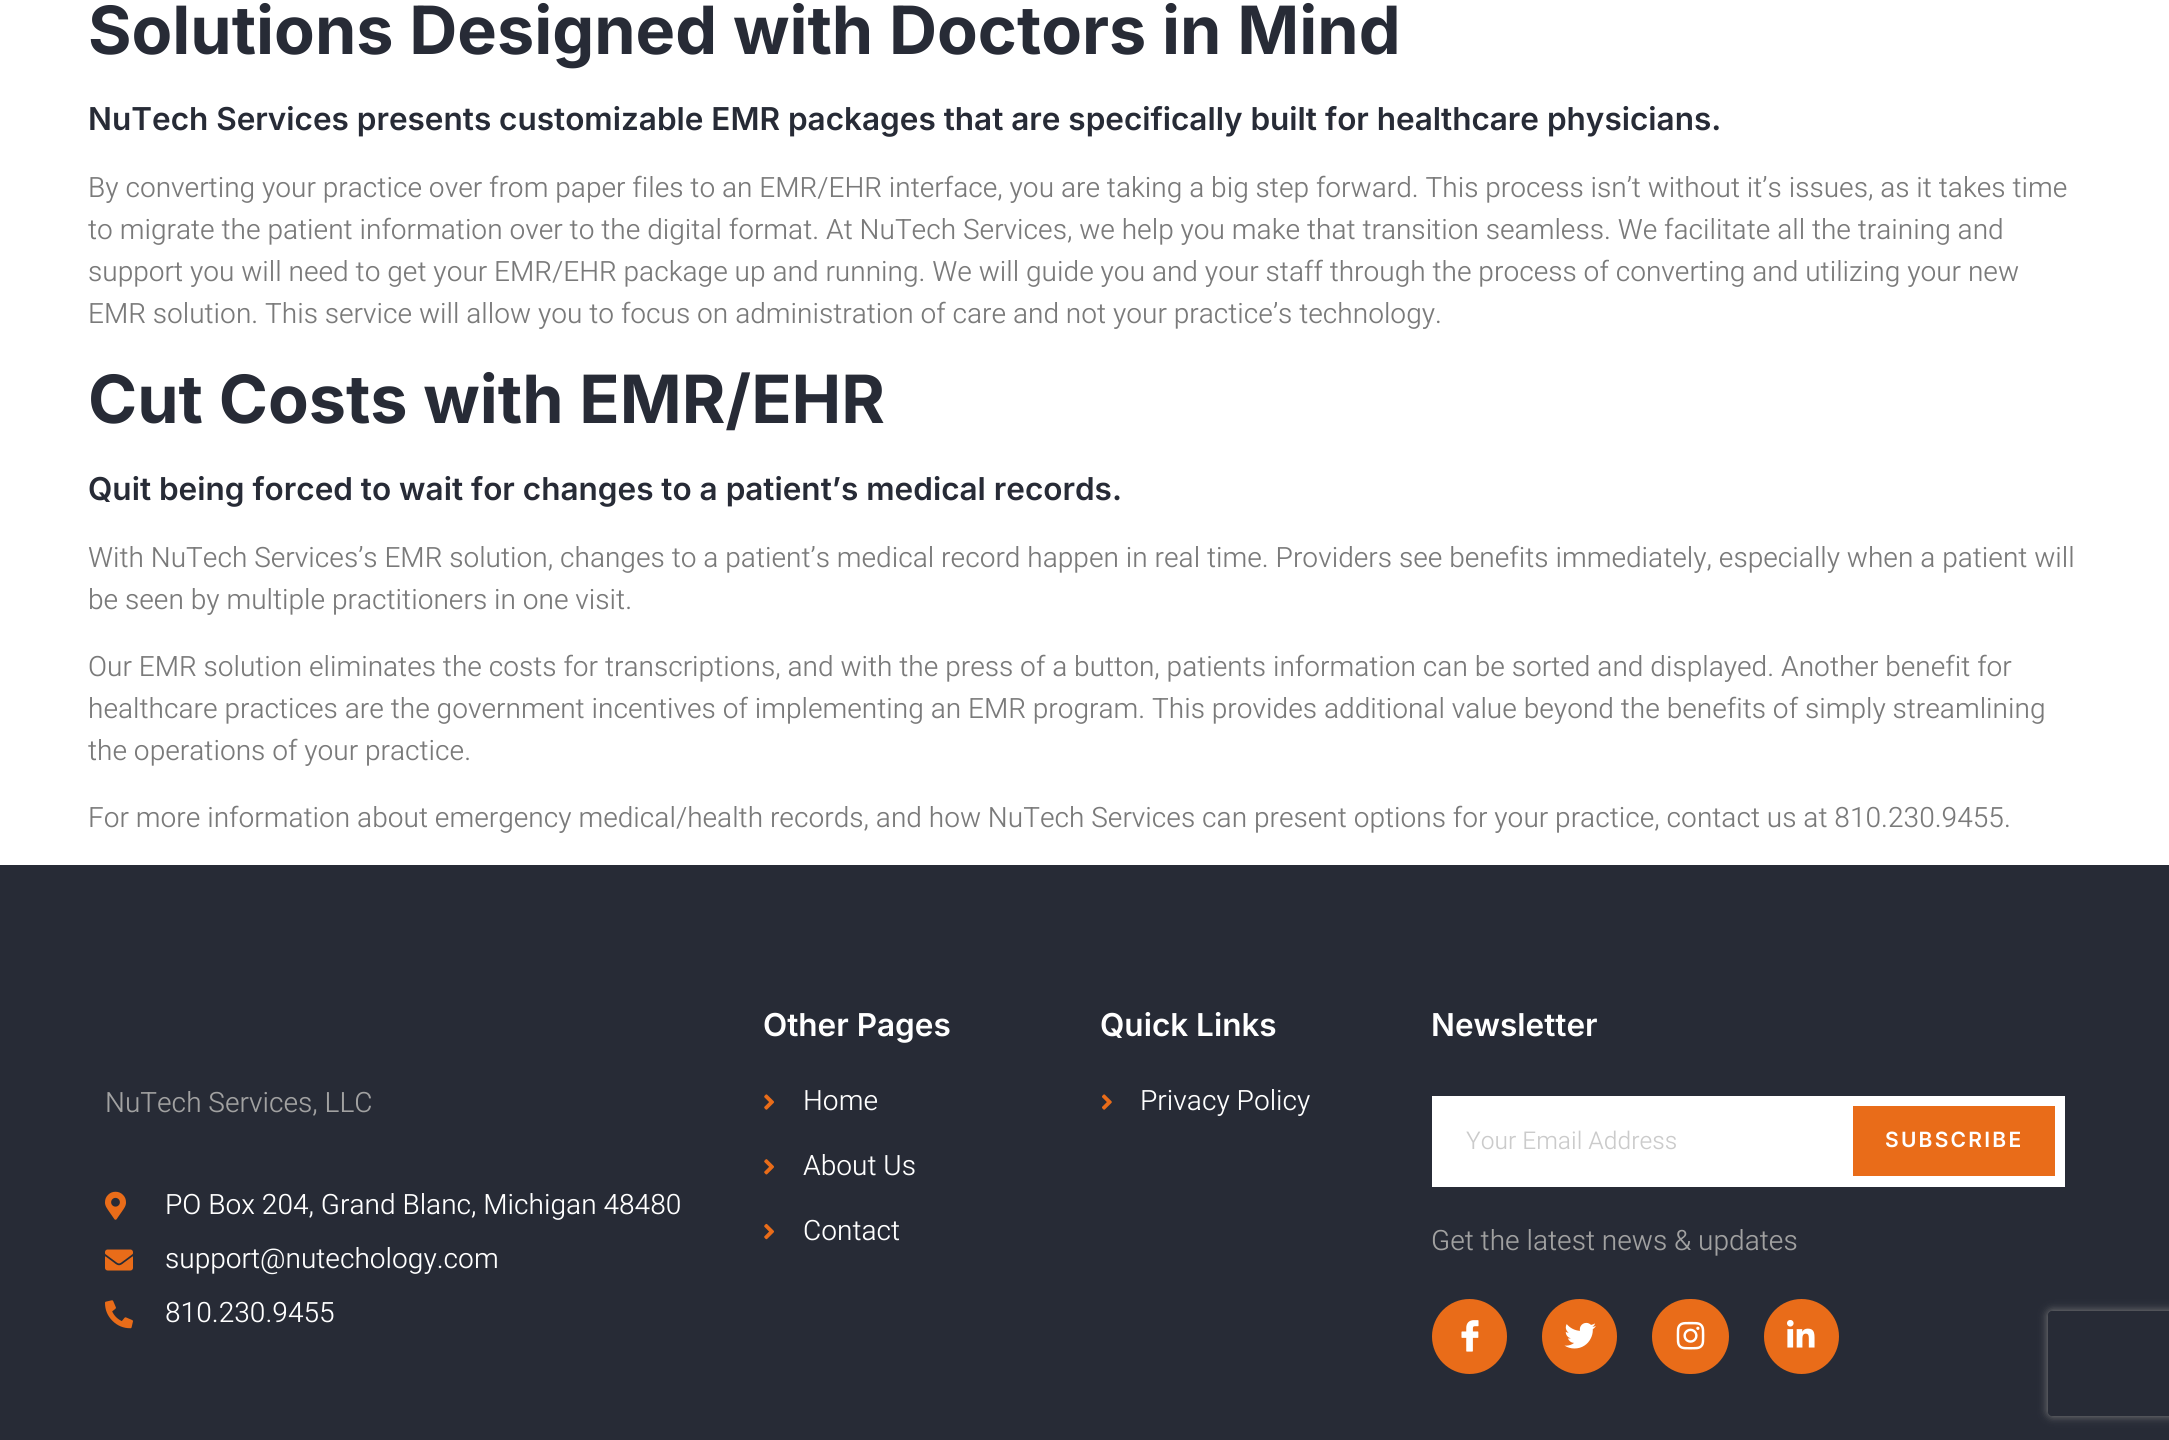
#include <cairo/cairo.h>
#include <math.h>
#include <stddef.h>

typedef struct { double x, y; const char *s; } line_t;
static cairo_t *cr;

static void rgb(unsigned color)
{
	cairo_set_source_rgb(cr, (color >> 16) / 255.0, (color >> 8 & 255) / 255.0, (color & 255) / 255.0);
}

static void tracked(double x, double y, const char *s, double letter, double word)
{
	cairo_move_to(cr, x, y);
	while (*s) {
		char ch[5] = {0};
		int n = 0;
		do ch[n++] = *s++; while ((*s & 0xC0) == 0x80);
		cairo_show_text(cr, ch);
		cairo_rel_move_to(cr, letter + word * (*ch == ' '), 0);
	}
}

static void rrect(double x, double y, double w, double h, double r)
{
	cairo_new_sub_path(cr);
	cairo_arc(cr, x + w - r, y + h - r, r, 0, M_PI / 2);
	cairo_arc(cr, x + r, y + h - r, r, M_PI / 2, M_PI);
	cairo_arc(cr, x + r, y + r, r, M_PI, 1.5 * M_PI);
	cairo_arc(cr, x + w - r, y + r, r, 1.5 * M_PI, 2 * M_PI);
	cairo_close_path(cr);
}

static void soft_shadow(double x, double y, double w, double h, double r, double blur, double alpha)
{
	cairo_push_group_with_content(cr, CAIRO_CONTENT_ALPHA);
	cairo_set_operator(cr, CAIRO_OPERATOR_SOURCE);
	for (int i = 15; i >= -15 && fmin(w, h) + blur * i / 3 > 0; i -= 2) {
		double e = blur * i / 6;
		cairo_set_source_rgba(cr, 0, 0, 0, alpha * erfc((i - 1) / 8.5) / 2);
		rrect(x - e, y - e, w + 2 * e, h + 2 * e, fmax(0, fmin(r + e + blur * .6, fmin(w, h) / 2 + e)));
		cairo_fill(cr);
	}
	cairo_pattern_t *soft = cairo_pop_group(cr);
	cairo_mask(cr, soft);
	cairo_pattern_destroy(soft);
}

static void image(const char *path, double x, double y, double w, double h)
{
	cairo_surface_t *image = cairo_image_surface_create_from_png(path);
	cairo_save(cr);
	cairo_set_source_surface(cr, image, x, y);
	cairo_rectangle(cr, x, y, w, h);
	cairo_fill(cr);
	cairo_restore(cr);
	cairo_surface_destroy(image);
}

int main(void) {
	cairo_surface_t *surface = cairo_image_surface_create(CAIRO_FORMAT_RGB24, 2169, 1440);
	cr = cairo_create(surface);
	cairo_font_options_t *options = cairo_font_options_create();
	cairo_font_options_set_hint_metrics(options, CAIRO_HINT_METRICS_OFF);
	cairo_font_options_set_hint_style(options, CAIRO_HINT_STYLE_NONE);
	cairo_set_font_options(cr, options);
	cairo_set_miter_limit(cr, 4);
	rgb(0xffffff);
	cairo_paint(cr);
	rgb(0x272b36);
	cairo_rectangle(cr, 0, 865, 2169, 575);
	cairo_fill(cr);
	image("img/1.png", 105, 1191, 21, 29);
	image("img/2.png", 105, 1249, 28, 22);
	image("img/3.png", 105, 1300, 28, 29);
	image("img/4.png", 764, 1094, 10, 16);
	image("img/5.png", 764, 1159, 10, 16);
	image("img/6.png", 764, 1223, 10, 17);
	image("img/7.png", 1102, 1094, 10, 16);
	rgb(0xffffff);
	cairo_rectangle(cr, 1432, 1096, 633, 91);
	cairo_fill(cr);
	rgb(0xe96c19);
	cairo_rectangle(cr, 1853, 1106, 202, 70);
	cairo_fill(cr);
	cairo_arc(cr, 1469.5, 1336.5, 37.5, 0, 2 * M_PI);
	cairo_fill(cr);
	image("img/8.png", 1461, 1320, 18, 32);
	cairo_arc(cr, 1579.5, 1336.5, 37.5, 0, 2 * M_PI);
	cairo_fill(cr);
	image("img/9.png", 1564, 1322, 32, 27);
	rrect(1652, 1299, 77, 75, 37.5);
	cairo_fill(cr);
	image("img/10.png", 1676, 1321, 29, 29);
	cairo_arc(cr, 1801.5, 1336.5, 37.5, 0, 2 * M_PI);
	cairo_fill(cr);
	image("img/11.png", 1787, 1320, 28, 28);
	cairo_save(cr);
	cairo_set_fill_rule(cr, CAIRO_FILL_RULE_EVEN_ODD);
	cairo_new_path(cr);
	cairo_move_to(cr, 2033, 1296);
	cairo_line_to(cr, 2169, 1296);
	cairo_line_to(cr, 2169, 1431);
	cairo_line_to(cr, 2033, 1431);
	cairo_close_path(cr);
	cairo_move_to(cr, 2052, 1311);
	cairo_line_to(cr, 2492, 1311);
	cairo_curve_to(cr, 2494, 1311, 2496, 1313, 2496, 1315);
	cairo_line_to(cr, 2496, 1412);
	cairo_curve_to(cr, 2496, 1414, 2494, 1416, 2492, 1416);
	cairo_line_to(cr, 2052, 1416);
	cairo_curve_to(cr, 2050, 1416, 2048, 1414, 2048, 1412);
	cairo_line_to(cr, 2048, 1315);
	cairo_curve_to(cr, 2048, 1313, 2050, 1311, 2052, 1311);
	cairo_close_path(cr);
	cairo_clip(cr);
	rgb(0x808080);
	soft_shadow(2048, 1311, 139, 105, 4, 4.5, 1);
	cairo_restore(cr);
	cairo_select_font_face(cr, "Inter", CAIRO_FONT_SLANT_NORMAL, CAIRO_FONT_WEIGHT_BOLD);
	cairo_set_font_size(cr, 66.5);
	rgb(0x272b36);
	cairo_move_to(cr, 88, 54);
	cairo_show_text(cr, "Solutions Designed with Doctors in Mind");
	cairo_select_font_face(cr, "Inter SemiBold", CAIRO_FONT_SLANT_NORMAL, CAIRO_FONT_WEIGHT_NORMAL);
	cairo_set_font_size(cr, 31.5);
	cairo_move_to(cr, 88, 130);
	cairo_show_text(cr, "NuTech Services presents customizable EMR packages that are specifically built for healthcare physicians.");
	cairo_select_font_face(cr, "Heebo Light", CAIRO_FONT_SLANT_NORMAL, CAIRO_FONT_WEIGHT_NORMAL);
	cairo_set_font_size(cr, 28);
	rgb(0x7a7a7a);
	{
		static const line_t items[] = {
			{88, 197, "By converting your practice over from paper files to an EMR/EHR interface, you are taking a big step forward. This process isn’t without it’s issues, as it takes time"},
			{88, 239, "to migrate the patient information over to the digital format. At NuTech Services, we help you make that transition seamless. We facilitate all the training and"},
			{88, 281, "support you will need to get your EMR/EHR package up and running. We will guide you and your staff through the process of converting and utilizing your new"},
			{88, 323, "EMR solution. This service will allow you to focus on administration of care and not your practice’s technology."},
		};
		for (size_t i = 0; i < sizeof items / sizeof *items; i++) {
			cairo_move_to(cr, items[i].x, items[i].y);
			cairo_show_text(cr, items[i].s);
		}
	}
	cairo_select_font_face(cr, "Inter", CAIRO_FONT_SLANT_NORMAL, CAIRO_FONT_WEIGHT_BOLD);
	cairo_set_font_size(cr, 66.5);
	rgb(0x272b36);
	cairo_move_to(cr, 88, 423);
	cairo_show_text(cr, "Cut Costs with EMR/EHR");
	cairo_select_font_face(cr, "Inter SemiBold", CAIRO_FONT_SLANT_NORMAL, CAIRO_FONT_WEIGHT_NORMAL);
	cairo_set_font_size(cr, 31.5);
	cairo_move_to(cr, 88, 500);
	cairo_show_text(cr, "Quit being forced to wait for changes to a patient’s medical records.");
	cairo_select_font_face(cr, "Heebo Light", CAIRO_FONT_SLANT_NORMAL, CAIRO_FONT_WEIGHT_NORMAL);
	cairo_set_font_size(cr, 28);
	rgb(0x7a7a7a);
	{
		static const line_t items[] = {
			{88, 567, "With NuTech Services’s EMR solution, changes to a patient’s medical record happen in real time. Providers see benefits immediately, especially when a patient will"},
			{88, 609, "be seen by multiple practitioners in one visit."},
			{88, 676, "Our EMR solution eliminates the costs for transcriptions, and with the press of a button, patients information can be sorted and displayed. Another benefit for"},
			{88, 718, "healthcare practices are the government incentives of implementing an EMR program. This provides additional value beyond the benefits of simply streamlining"},
			{88, 760, "the operations of your practice."},
			{88, 827, "For more information about emergency medical/health records, and how NuTech Services can present options for your practice, contact us at 810.230.9455."},
		};
		for (size_t i = 0; i < sizeof items / sizeof *items; i++) {
			cairo_move_to(cr, items[i].x, items[i].y);
			cairo_show_text(cr, items[i].s);
		}
	}
	rgb(0xa1a1a1);
	cairo_move_to(cr, 105, 1112);
	cairo_show_text(cr, "NuTech Services, LLC");
	rgb(0xffffff);
	{
		static const line_t items[] = {
			{165, 1214, "PO Box 204, Grand Blanc, Michigan 48480"},
			{165, 1268, "support@nutechology.com"},
			{165, 1322, "810.230.9455"},
		};
		for (size_t i = 0; i < sizeof items / sizeof *items; i++) {
			cairo_move_to(cr, items[i].x, items[i].y);
			cairo_show_text(cr, items[i].s);
		}
	}
	cairo_select_font_face(cr, "Inter SemiBold", CAIRO_FONT_SLANT_NORMAL, CAIRO_FONT_WEIGHT_NORMAL);
	cairo_set_font_size(cr, 31.5);
	cairo_move_to(cr, 763, 1036);
	cairo_show_text(cr, "Other Pages");
	cairo_select_font_face(cr, "Heebo Light", CAIRO_FONT_SLANT_NORMAL, CAIRO_FONT_WEIGHT_NORMAL);
	cairo_set_font_size(cr, 28);
	{
		static const line_t items[] = {
			{803, 1110, "Home"},
			{803, 1175, "About Us"},
			{803, 1240, "Contact"},
		};
		for (size_t i = 0; i < sizeof items / sizeof *items; i++) {
			cairo_move_to(cr, items[i].x, items[i].y);
			cairo_show_text(cr, items[i].s);
		}
	}
	cairo_select_font_face(cr, "Inter SemiBold", CAIRO_FONT_SLANT_NORMAL, CAIRO_FONT_WEIGHT_NORMAL);
	cairo_set_font_size(cr, 31.5);
	cairo_move_to(cr, 1100, 1036);
	cairo_show_text(cr, "Quick Links");
	cairo_select_font_face(cr, "Heebo Light", CAIRO_FONT_SLANT_NORMAL, CAIRO_FONT_WEIGHT_NORMAL);
	cairo_set_font_size(cr, 28);
	cairo_move_to(cr, 1140, 1110);
	cairo_show_text(cr, "Privacy Policy");
	cairo_select_font_face(cr, "Inter SemiBold", CAIRO_FONT_SLANT_NORMAL, CAIRO_FONT_WEIGHT_NORMAL);
	cairo_set_font_size(cr, 31.5);
	cairo_move_to(cr, 1431, 1036);
	cairo_show_text(cr, "Newsletter");
	cairo_select_font_face(cr, "Heebo Light", CAIRO_FONT_SLANT_NORMAL, CAIRO_FONT_WEIGHT_NORMAL);
	cairo_set_font_size(cr, 24.5);
	rgb(0xcbcbcb);
	cairo_move_to(cr, 1466, 1149);
	cairo_show_text(cr, "Your Email Address");
	cairo_select_font_face(cr, "Inter SemiBold", CAIRO_FONT_SLANT_NORMAL, CAIRO_FONT_WEIGHT_NORMAL);
	cairo_set_font_size(cr, 21);
	rgb(0xffffff);
	tracked(1885, 1147, "SUBSCRIBE", 2.25, 0);
	cairo_select_font_face(cr, "Heebo Light", CAIRO_FONT_SLANT_NORMAL, CAIRO_FONT_WEIGHT_NORMAL);
	cairo_set_font_size(cr, 28);
	rgb(0xa1a1a1);
	cairo_move_to(cr, 1431, 1250);
	cairo_show_text(cr, "Get the latest news & updates");
	cairo_surface_write_to_png(surface, "page.png");
	cairo_font_options_destroy(options);
	cairo_destroy(cr);
	cairo_surface_destroy(surface);
	return 0;
}
